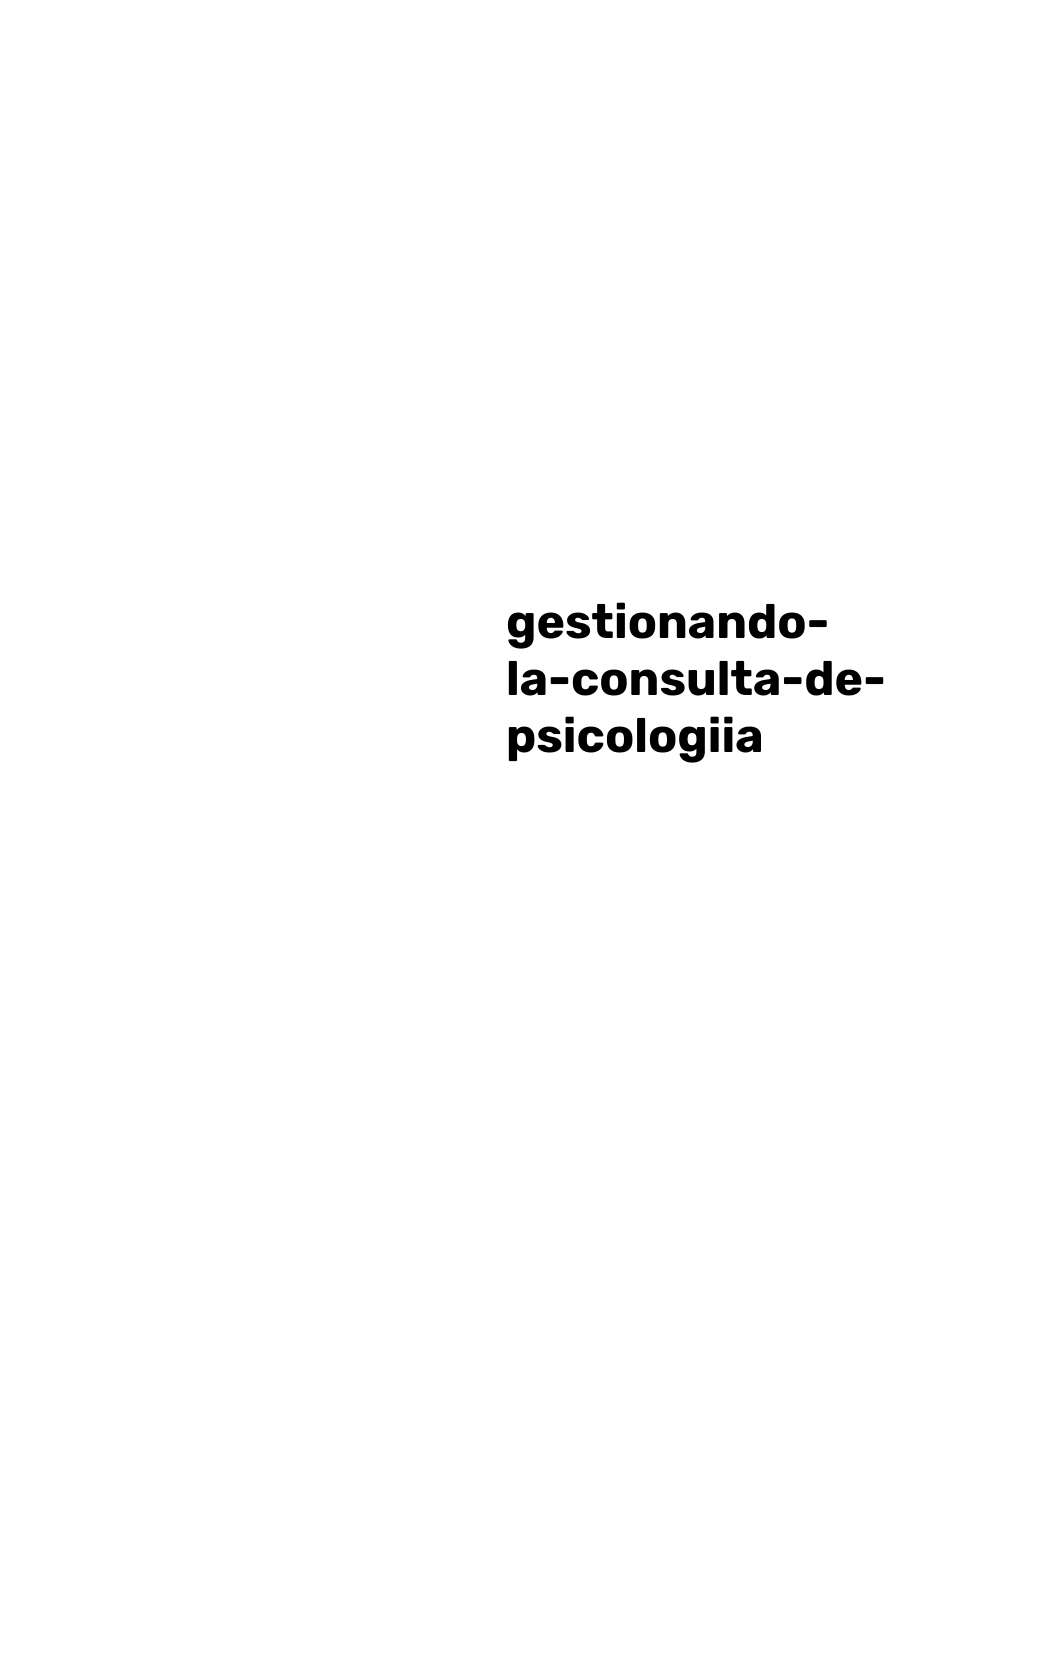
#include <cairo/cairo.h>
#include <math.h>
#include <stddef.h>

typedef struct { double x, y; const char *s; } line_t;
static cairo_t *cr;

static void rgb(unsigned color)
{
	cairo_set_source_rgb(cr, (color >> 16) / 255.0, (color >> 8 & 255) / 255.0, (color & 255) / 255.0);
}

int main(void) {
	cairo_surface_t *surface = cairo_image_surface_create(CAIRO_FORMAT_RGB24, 1046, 1658);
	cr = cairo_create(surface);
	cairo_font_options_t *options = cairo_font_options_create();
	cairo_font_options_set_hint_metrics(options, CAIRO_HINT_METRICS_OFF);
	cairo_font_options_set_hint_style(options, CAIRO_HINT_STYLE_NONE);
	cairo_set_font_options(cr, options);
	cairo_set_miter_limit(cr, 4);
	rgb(0xffffff);
	cairo_paint(cr);
	cairo_select_font_face(cr, "Rubik", CAIRO_FONT_SLANT_NORMAL, CAIRO_FONT_WEIGHT_BOLD);
	cairo_set_font_size(cr, 48);
	rgb(0x000000);
	{
		static const line_t items[] = {
			{506, 638, "gestionando-"},
			{506, 695, "la-consulta-de-"},
			{506, 752, "psicologiia"},
		};
		for (size_t i = 0; i < sizeof items / sizeof *items; i++) {
			cairo_move_to(cr, items[i].x, items[i].y);
			cairo_show_text(cr, items[i].s);
		}
	}
	cairo_surface_write_to_png(surface, "page.png");
	cairo_font_options_destroy(options);
	cairo_destroy(cr);
	cairo_surface_destroy(surface);
	return 0;
}
